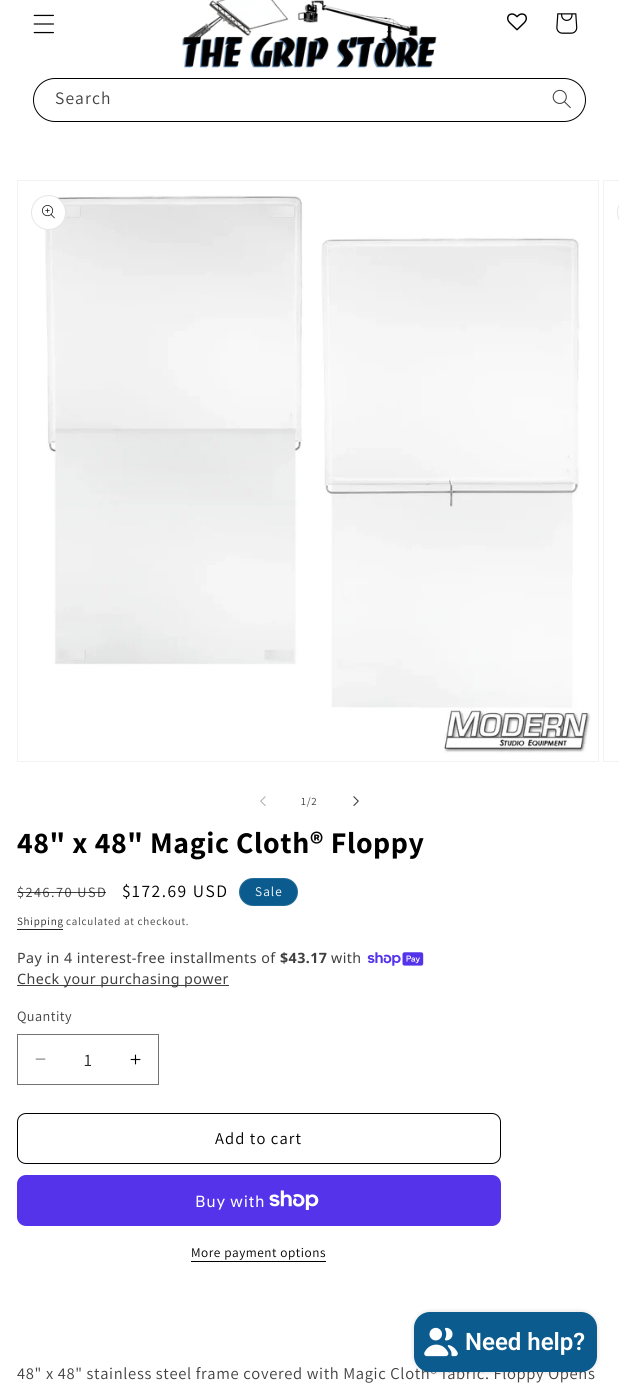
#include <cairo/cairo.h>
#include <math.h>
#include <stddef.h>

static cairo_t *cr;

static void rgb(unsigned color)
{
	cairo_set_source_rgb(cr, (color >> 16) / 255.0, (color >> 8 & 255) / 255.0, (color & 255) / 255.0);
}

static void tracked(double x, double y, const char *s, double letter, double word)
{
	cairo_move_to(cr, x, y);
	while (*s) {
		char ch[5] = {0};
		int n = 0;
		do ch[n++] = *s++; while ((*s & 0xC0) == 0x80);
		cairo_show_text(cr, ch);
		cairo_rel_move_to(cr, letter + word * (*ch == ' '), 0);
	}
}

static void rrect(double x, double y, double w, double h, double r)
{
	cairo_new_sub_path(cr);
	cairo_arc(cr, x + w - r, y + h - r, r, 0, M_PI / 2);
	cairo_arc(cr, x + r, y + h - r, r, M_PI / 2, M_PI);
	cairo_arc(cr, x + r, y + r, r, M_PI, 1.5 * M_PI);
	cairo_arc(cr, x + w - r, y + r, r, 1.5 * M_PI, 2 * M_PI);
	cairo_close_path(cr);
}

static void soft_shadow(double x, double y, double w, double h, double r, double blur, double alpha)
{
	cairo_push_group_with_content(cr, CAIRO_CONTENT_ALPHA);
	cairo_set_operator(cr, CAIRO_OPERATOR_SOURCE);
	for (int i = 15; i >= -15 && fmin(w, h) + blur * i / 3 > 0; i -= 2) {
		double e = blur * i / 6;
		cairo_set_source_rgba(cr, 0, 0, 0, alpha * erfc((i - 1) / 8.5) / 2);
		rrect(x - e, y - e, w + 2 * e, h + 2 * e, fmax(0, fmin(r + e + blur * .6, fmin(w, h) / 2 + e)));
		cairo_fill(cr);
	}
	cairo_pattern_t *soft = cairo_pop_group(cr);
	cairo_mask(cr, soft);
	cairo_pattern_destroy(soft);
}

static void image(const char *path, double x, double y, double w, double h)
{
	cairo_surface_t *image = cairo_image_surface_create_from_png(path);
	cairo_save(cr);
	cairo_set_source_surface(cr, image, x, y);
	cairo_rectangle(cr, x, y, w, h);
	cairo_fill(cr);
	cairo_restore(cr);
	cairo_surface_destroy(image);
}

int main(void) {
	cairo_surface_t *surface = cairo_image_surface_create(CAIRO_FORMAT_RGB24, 619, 1393);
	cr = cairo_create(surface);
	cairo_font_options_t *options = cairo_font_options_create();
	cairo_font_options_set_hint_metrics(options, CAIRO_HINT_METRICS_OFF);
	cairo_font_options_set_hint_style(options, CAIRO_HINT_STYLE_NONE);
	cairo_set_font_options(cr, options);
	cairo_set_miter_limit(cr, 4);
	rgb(0xffffff);
	cairo_paint(cr);
	image("img/1.png", 33, 14, 21, 20);
	image("img/2.png", 181, 0, 256, 68);
	image("img/3.png", 507, 13, 20, 18);
	image("img/4.png", 556, 13, 22, 21);
	image("img/5.png", 552, 89, 19, 20);
	rrect(33.5, 78.5, 552, 43, 21.5);
	rgb(0x000000);
	cairo_set_line_width(cr, 1);
	cairo_stroke(cr);
	cairo_rectangle(cr, 17.5, 180.5, 581, 581);
	rgb(0xf2f2f2);
	cairo_stroke(cr);
	image("img/7.png", 44, 195, 547, 558);
	rgb(0xffffff);
	cairo_arc(cr, 48.5, 212.5, 17.5, 0, 2 * M_PI);
	cairo_fill(cr);
	cairo_arc(cr, 48.5, 212.5, 17, 0, 2 * M_PI);
	cairo_set_source_rgba(cr, 0, 0, 0, 0.1);
	cairo_stroke(cr);
	image("img/6.png", 42, 205, 13, 14);
	cairo_rectangle(cr, 603.5, 180.5, 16, 581);
	rgb(0xf2f2f2);
	cairo_stroke(cr);
	rrect(617.5, 195.5, 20, 34, 17);
	rgb(0xe6e6e6);
	cairo_stroke(cr);
	image("img/8.png", 260, 796, 6, 10);
	image("img/9.png", 353, 796, 6, 10);
	rgb(0x0b5b8e);
	rrect(239, 878, 59, 28, 14);
	cairo_fill(cr);
	rrect(239.5, 878.5, 58, 27, 13.5);
	cairo_set_source_rgba(cr, 1, 1, 1, 0.1);
	cairo_stroke(cr);
	rgb(0x262626);
	cairo_rectangle(cr, 17, 929, 46, 1);
	cairo_fill(cr);
	image("img/10.png", 367, 952, 57, 14);
	rgb(0x404040);
	cairo_rectangle(cr, 17, 985, 212, 1);
	cairo_fill(cr);
	image("img/11.png", 35, 1058, 11, 2);
	image("img/12.png", 130, 1054, 11, 11);
	cairo_rectangle(cr, 17.5, 1034.5, 141, 50);
	rgb(0x737373);
	cairo_stroke(cr);
	rrect(17.5, 1113.5, 483, 50, 8.5);
	rgb(0x000000);
	cairo_stroke(cr);
	rgb(0x5433eb);
	rrect(17, 1175, 484, 51, 9);
	cairo_fill(cr);
	image("img/13.png", 269, 1190, 50, 20);
	rgb(0x000000);
	cairo_rectangle(cr, 191, 1261, 135, 1);
	cairo_fill(cr);
	rgb(0x000000);
	soft_shadow(414, 1312, 183, 60, 16, 2.5, 0.15);
	cairo_select_font_face(cr, "Assistant", CAIRO_FONT_SLANT_NORMAL, CAIRO_FONT_WEIGHT_NORMAL);
	cairo_set_font_size(cr, 17.5);
	rgb(0x404040);
	tracked(55, 104, "Search", 1.1, 0);
	cairo_set_font_size(cr, 11);
	tracked(301, 805, "1/2", 0.75, 0);
	cairo_select_font_face(cr, "Assistant", CAIRO_FONT_SLANT_NORMAL, CAIRO_FONT_WEIGHT_BOLD);
	cairo_set_font_size(cr, 30);
	rgb(0x000000);
	tracked(17, 853, "48\" x 48\" Magic Cloth® Floppy", 0.6, 0);
	cairo_select_font_face(cr, "Assistant", CAIRO_FONT_SLANT_NORMAL, CAIRO_FONT_WEIGHT_NORMAL);
	cairo_set_font_size(cr, 14.25);
	rgb(0x404040);
	tracked(17, 897, "$246.70 USD", 1.5, 0);
	cairo_set_source_rgba(cr, 0, 0, 0, 0.75);
	cairo_rectangle(cr, 17, 892, 89, 1);
	cairo_fill(cr);
	cairo_set_font_size(cr, 17.5);
	rgb(0x000000);
	tracked(122, 897, "$172.69 USD", 1.5, 0);
	cairo_set_font_size(cr, 13.25);
	rgb(0xffffff);
	tracked(255, 896, "Sale", 1.1, 0);
	cairo_set_font_size(cr, 11);
	rgb(0x262626);
	tracked(17, 925, "Shipping", 0.75, 0);
	rgb(0x404040);
	tracked(66, 925, "calculated at checkout.", 0.75, 0);
	cairo_select_font_face(cr, "Noto Sans", CAIRO_FONT_SLANT_NORMAL, CAIRO_FONT_WEIGHT_NORMAL);
	cairo_set_font_size(cr, 14.25);
	tracked(17, 963, "Pay in 4 interest-free installments of", 0.45, 0);
	cairo_select_font_face(cr, "Noto Sans", CAIRO_FONT_SLANT_NORMAL, CAIRO_FONT_WEIGHT_BOLD);
	tracked(280, 963, "$43.17", 0.45, 0);
	cairo_select_font_face(cr, "Noto Sans", CAIRO_FONT_SLANT_NORMAL, CAIRO_FONT_WEIGHT_NORMAL);
	tracked(331, 963, "with", 0.45, 0);
	tracked(17, 984, "Check your purchasing power", 0.45, 0);
	cairo_select_font_face(cr, "Assistant", CAIRO_FONT_SLANT_NORMAL, CAIRO_FONT_WEIGHT_NORMAL);
	tracked(17, 1021, "Quantity", 0.45, 0);
	cairo_set_font_size(cr, 17.5);
	rgb(0x262626);
	cairo_move_to(cr, 84, 1066);
	cairo_show_text(cr, "1");
	cairo_set_font_size(cr, 16.5);
	rgb(0x000000);
	tracked(215, 1144, "Add to cart", 1.1, 0);
	cairo_select_font_face(cr, "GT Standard", CAIRO_FONT_SLANT_NORMAL, CAIRO_FONT_WEIGHT_NORMAL);
	cairo_set_font_size(cr, 16);
	rgb(0xffffff);
	tracked(195, 1207, "Buy with", 0.65, 0);
	cairo_select_font_face(cr, "Assistant", CAIRO_FONT_SLANT_NORMAL, CAIRO_FONT_WEIGHT_NORMAL);
	cairo_set_font_size(cr, 13.25);
	rgb(0x000000);
	tracked(191, 1257, "More payment options", 0.55, 0);
	cairo_set_font_size(cr, 16.5);
	rgb(0x404040);
	tracked(17, 1379, "48\" x 48\" stainless steel frame covered with Magic Cloth® fabric. Floppy Opens", 0.65, 0);
	rgb(0x0b5b8e);
	rrect(414, 1312, 183, 60, 16);
	cairo_fill(cr);
	image("img/14.png", 424, 1327, 34, 30);
	cairo_select_font_face(cr, "Roboto SemiBold", CAIRO_FONT_SLANT_NORMAL, CAIRO_FONT_WEIGHT_NORMAL);
	cairo_set_font_size(cr, 24);
	rgb(0xffffff);
	cairo_move_to(cr, 465, 1350);
	cairo_show_text(cr, "Need help?");
	cairo_surface_write_to_png(surface, "page.png");
	cairo_font_options_destroy(options);
	cairo_destroy(cr);
	cairo_surface_destroy(surface);
	return 0;
}
